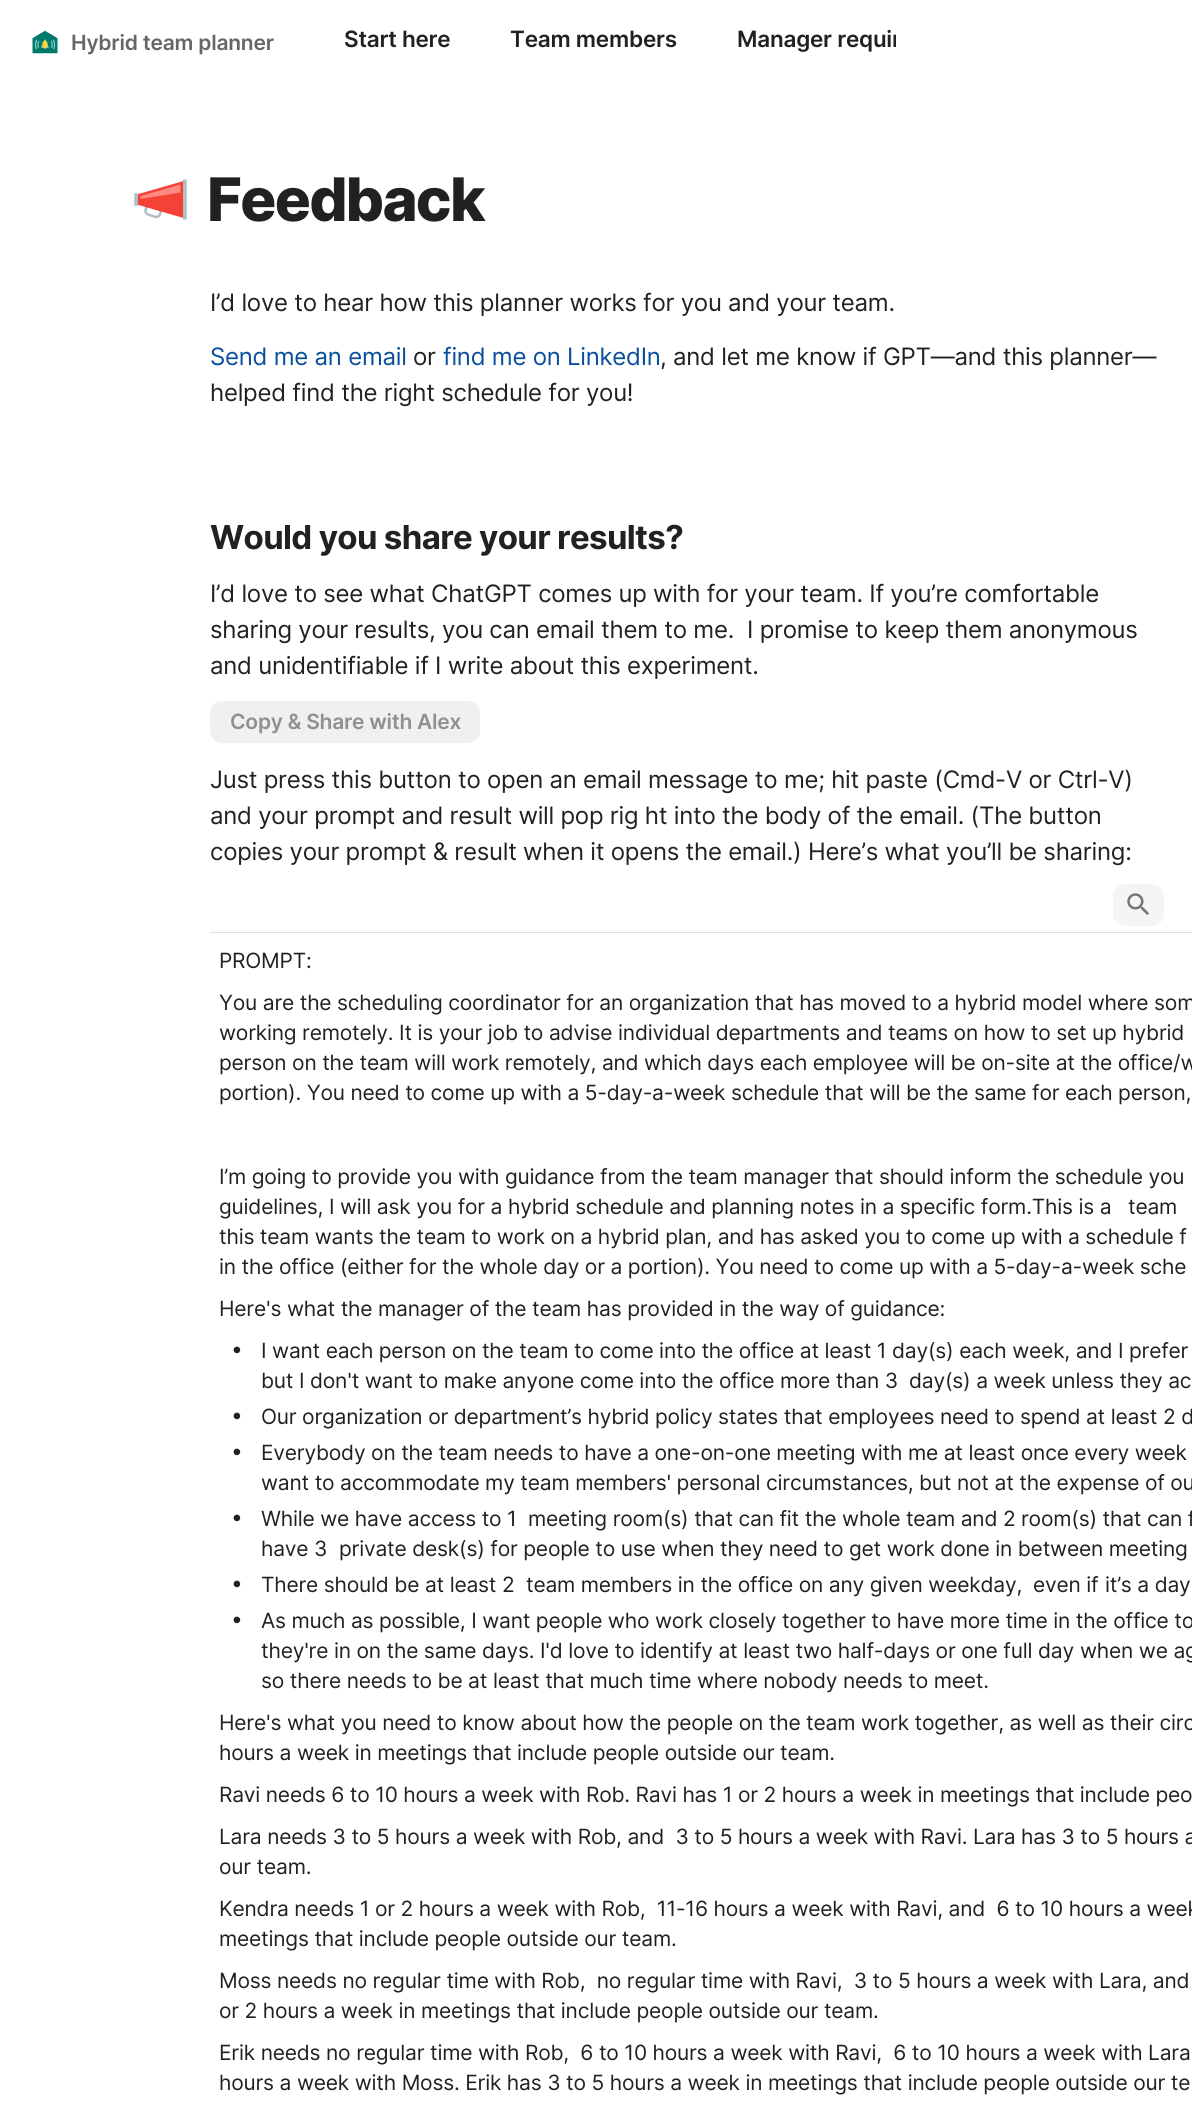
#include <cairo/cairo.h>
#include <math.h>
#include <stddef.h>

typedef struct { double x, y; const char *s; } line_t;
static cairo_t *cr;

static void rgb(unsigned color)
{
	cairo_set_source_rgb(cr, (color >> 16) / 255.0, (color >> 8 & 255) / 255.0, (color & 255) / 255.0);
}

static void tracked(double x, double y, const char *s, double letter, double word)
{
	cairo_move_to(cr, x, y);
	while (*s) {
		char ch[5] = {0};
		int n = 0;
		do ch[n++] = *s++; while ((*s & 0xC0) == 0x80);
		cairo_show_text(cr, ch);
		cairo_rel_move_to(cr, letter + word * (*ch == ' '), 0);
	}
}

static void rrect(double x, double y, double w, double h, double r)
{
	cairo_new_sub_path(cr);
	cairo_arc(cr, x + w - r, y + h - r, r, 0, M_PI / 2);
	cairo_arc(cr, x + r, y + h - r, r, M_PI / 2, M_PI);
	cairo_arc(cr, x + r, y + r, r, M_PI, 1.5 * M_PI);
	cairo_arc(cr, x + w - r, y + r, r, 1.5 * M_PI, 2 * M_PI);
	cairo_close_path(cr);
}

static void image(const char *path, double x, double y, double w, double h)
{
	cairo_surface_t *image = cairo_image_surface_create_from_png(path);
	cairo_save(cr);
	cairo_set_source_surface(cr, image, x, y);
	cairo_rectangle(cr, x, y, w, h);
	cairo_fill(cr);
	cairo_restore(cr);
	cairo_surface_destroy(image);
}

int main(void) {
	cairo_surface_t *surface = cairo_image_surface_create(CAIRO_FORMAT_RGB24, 1192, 2111);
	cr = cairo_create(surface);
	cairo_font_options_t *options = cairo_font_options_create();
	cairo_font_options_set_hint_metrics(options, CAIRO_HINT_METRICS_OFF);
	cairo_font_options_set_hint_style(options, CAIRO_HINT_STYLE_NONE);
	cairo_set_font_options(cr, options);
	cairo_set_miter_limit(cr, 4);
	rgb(0xffffff);
	cairo_paint(cr);
	image("img/1.png", 32, 30, 26, 24);
	image("img/2.png", 134, 179, 53, 41);
	rgb(0xf0f0f0);
	rrect(210, 701, 270, 42, 12);
	cairo_fill(cr);
	rgb(0xf5f5f5);
	rrect(1113, 884, 51, 42, 12);
	cairo_fill(cr);
	image("img/3.png", 1127, 893, 22, 22);
	rgb(0xe0e0e0);
	cairo_rectangle(cr, 210, 932, 982, 1);
	cairo_fill(cr);
	cairo_select_font_face(cr, "Inter SemiBold", CAIRO_FONT_SLANT_NORMAL, CAIRO_FONT_WEIGHT_NORMAL);
	cairo_set_font_size(cr, 21);
	rgb(0x666666);
	tracked(71, 50, "Hybrid team planner", -0.21, 0);
	cairo_set_font_size(cr, 22.5);
	rgb(0x212121);
	tracked(344, 47, "Start here", -0.21, 0);
	tracked(510, 47, "Team members", -0.21, 0);
	cairo_save(cr);
	cairo_rectangle(cr, 737, 26, 159, 30);
	cairo_clip(cr);
	tracked(737, 47, "Manager requir", -0.21, 0);
	cairo_restore(cr);
	cairo_select_font_face(cr, "Inter ExtraBold", CAIRO_FONT_SLANT_NORMAL, CAIRO_FONT_WEIGHT_NORMAL);
	cairo_set_font_size(cr, 60);
	tracked(207, 221, "Feedback", -1.75, 0);
	cairo_select_font_face(cr, "Inter", CAIRO_FONT_SLANT_NORMAL, CAIRO_FONT_WEIGHT_NORMAL);
	cairo_set_font_size(cr, 24);
	tracked(210, 311, "I’d love to hear how this planner works for you and your team.", -0.25, 0);
	rgb(0x094e9b);
	tracked(210, 365, "Send me an email", -0.25, 0);
	rgb(0x212121);
	tracked(413, 365, "or", -0.25, 0);
	rgb(0x094e9b);
	tracked(443, 365, "find me on LinkedIn", -0.25, 0);
	rgb(0x212121);
	tracked(660, 365, ", and let me know if GPT—and this planner—", -0.25, 0);
	tracked(210, 401, "helped find the right schedule for you!", -0.25, 0);
	cairo_select_font_face(cr, "Inter", CAIRO_FONT_SLANT_NORMAL, CAIRO_FONT_WEIGHT_BOLD);
	cairo_set_font_size(cr, 33);
	tracked(210, 549, "Would you share your results?", -0.65, 0);
	cairo_select_font_face(cr, "Inter", CAIRO_FONT_SLANT_NORMAL, CAIRO_FONT_WEIGHT_NORMAL);
	cairo_set_font_size(cr, 24);
	{
		static const line_t items[] = {
			{210, 602, "I’d love to see what ChatGPT comes up with for your team. If you’re comfortable"},
			{210, 638, "sharing your results, you can email them to me.  I promise to keep them anonymous"},
			{210, 674, "and unidentifiable if I write about this experiment."},
		};
		for (size_t i = 0; i < sizeof items / sizeof *items; i++) {
			tracked(items[i].x, items[i].y, items[i].s, -0.25, 0);
		}
	}
	cairo_select_font_face(cr, "Inter SemiBold", CAIRO_FONT_SLANT_NORMAL, CAIRO_FONT_WEIGHT_NORMAL);
	cairo_set_font_size(cr, 21);
	rgb(0x909090);
	tracked(230, 729, "Copy & Share with Alex", -0.25, 0);
	cairo_select_font_face(cr, "Inter", CAIRO_FONT_SLANT_NORMAL, CAIRO_FONT_WEIGHT_NORMAL);
	cairo_set_font_size(cr, 24);
	rgb(0x212121);
	{
		static const line_t items[] = {
			{210, 788, "Just press this button to open an email message to me; hit paste (Cmd-V or Ctrl-V)"},
			{210, 824, "and your prompt and result will pop rig ht into the body of the email. (The button"},
			{210, 860, "copies your prompt & result when it opens the email.) Here’s what you’ll be sharing:"},
		};
		for (size_t i = 0; i < sizeof items / sizeof *items; i++) {
			tracked(items[i].x, items[i].y, items[i].s, -0.25, 0);
		}
	}
	cairo_set_font_size(cr, 21);
	{
		static const line_t items[] = {
			{219, 968, "PROMPT:"},
			{219, 1010, "You are the scheduling coordinator for an organization that has moved to a hybrid model where som"},
			{219, 1040, "working remotely. It is your job to advise individual departments and teams on how to set up hybrid"},
			{219, 1070, "person on the team will work remotely, and which days each employee will be on-site at the office/w"},
			{219, 1100, "portion). You need to come up with a 5-day-a-week schedule that will be the same for each person,"},
			{219, 1184, "I’m going to provide you with guidance from the team manager that should inform the schedule you"},
			{219, 1214, "guidelines, I will ask you for a hybrid schedule and planning notes in a specific form.This is a"},
			{1128, 1214, "team"},
			{219, 1244, "this team wants the team to work on a hybrid plan, and has asked you to come up with a schedule f"},
			{219, 1274, "in the office (either for the whole day or a portion). You need to come up with a 5-day-a-week sche"},
			{219, 1316, "Here's what the manager of the team has provided in the way of guidance:"},
			{231, 1356, "•"},
			{261, 1358, "I want each person on the team to come into the office at least 1"},
			{892, 1358, "day(s) each week, and I prefer"},
			{261, 1388, "but I don't want to make anyone come into the office more than 3"},
			{909, 1388, "day(s) a week unless they ac"},
			{231, 1422, "•"},
			{261, 1424, "Our organization or department’s hybrid policy states that employees need to spend at least 2 d"},
			{231, 1458, "•"},
			{261, 1460, "Everybody on the team needs to have a one-on-one meeting with me at least once every week"},
			{261, 1490, "want to accommodate my team members' personal circumstances, but not at the expense of ou"},
			{231, 1524, "•"},
			{261, 1526, "While we have access to 1"},
			{528, 1526, "meeting room(s) that can fit the whole team and 2"},
			{1021, 1526, "room(s) that can f"},
			{261, 1556, "have 3"},
			{339, 1556, "private desk(s) for people to use when they need to get work done in between meeting"},
			{231, 1590, "•"},
			{261, 1592, "There should be at least 2"},
			{526, 1592, "team members in the office on any given weekday,"},
			{1033, 1592, "even if"},
			{1105, 1592, "it’s a day"},
			{231, 1626, "•"},
			{261, 1628, "As much as possible, I want people who work closely together to have more time in the office to"},
			{261, 1658, "they're in on the same days. I'd love to identify at least two half-days or one full day"},
			{1080, 1658, "when we ag"},
			{261, 1688, "so there needs to be at least that much time where nobody needs to meet."},
			{219, 1730, "Here's what you need to know about how the people on the team work together, as well as their circ"},
			{219, 1760, "hours a week in meetings that include people outside our team."},
			{219, 1802, "Ravi needs 6 to 10 hours a week with Rob. Ravi has 1 or 2 hours a week in meetings that include peo"},
			{219, 1844, "Lara needs 3 to 5 hours a week with Rob, and  3 to 5 hours a week with Ravi. Lara has 3 to 5 hours a"},
			{219, 1874, "our team."},
			{219, 1916, "Kendra needs 1 or 2 hours a week with Rob,  11-16 hours a week with Ravi, and  6 to 10 hours a week"},
			{219, 1946, "meetings that include people outside our team."},
			{219, 1988, "Moss needs no regular time with Rob,  no regular time with Ravi,  3 to 5 hours a week with Lara, and"},
			{219, 2018, "or 2 hours a week in meetings that include people outside our team."},
			{219, 2060, "Erik needs no regular time with Rob,  6 to 10 hours a week with Ravi,  6 to 10 hours a week with Lara"},
			{219, 2090, "hours a week with Moss. Erik has 3 to 5 hours a week in meetings that include people outside our te"},
		};
		for (size_t i = 0; i < sizeof items / sizeof *items; i++) {
			tracked(items[i].x, items[i].y, items[i].s, -0.21, 0);
		}
	}
	cairo_surface_write_to_png(surface, "page.png");
	cairo_font_options_destroy(options);
	cairo_destroy(cr);
	cairo_surface_destroy(surface);
	return 0;
}
